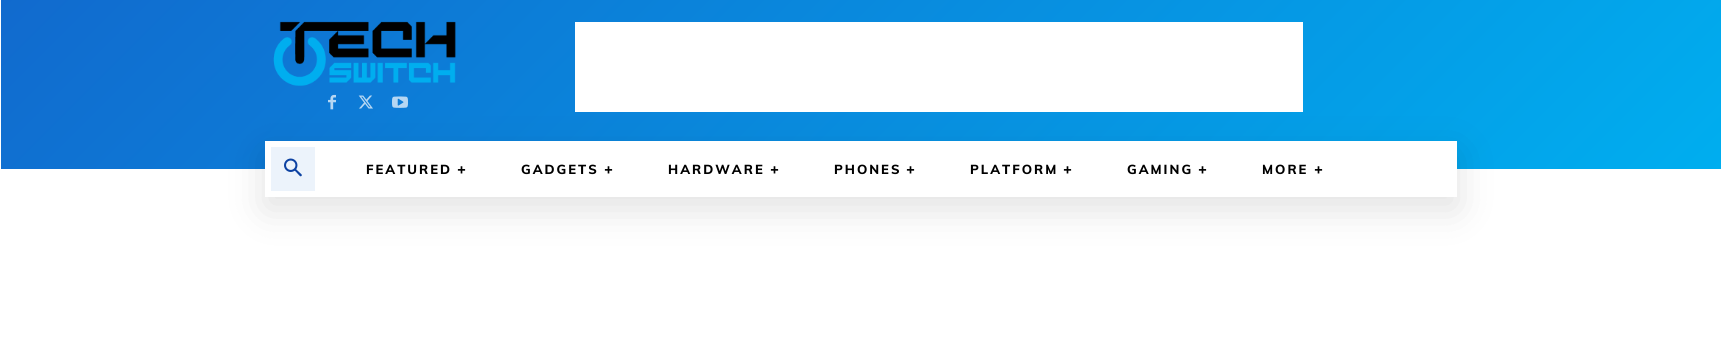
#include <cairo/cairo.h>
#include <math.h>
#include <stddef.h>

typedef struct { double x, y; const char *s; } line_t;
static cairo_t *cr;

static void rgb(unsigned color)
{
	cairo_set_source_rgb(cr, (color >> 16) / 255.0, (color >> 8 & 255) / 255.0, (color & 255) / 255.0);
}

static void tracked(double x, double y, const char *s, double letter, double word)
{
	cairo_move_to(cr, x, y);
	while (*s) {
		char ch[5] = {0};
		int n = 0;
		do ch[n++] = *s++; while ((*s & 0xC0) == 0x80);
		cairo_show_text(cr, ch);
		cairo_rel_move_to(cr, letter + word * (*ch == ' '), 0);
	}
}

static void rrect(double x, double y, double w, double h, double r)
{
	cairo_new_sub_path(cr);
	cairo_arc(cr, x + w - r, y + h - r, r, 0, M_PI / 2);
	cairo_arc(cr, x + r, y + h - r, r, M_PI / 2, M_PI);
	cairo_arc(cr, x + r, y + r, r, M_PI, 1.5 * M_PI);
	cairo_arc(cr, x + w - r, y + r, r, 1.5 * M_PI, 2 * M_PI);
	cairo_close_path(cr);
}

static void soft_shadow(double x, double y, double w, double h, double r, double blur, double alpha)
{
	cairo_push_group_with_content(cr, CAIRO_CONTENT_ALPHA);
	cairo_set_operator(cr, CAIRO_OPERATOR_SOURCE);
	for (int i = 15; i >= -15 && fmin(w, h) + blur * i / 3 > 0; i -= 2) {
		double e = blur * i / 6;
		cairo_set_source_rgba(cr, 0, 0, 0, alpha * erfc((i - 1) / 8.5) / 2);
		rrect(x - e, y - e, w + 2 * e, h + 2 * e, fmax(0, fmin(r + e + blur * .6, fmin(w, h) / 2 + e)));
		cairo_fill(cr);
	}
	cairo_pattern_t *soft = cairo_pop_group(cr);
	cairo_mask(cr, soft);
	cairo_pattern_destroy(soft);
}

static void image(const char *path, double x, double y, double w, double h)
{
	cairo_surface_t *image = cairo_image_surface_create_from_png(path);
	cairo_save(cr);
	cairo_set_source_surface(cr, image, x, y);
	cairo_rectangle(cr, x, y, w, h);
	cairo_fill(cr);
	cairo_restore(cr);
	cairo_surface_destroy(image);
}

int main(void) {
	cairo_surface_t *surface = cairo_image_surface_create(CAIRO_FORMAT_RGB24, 1721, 349);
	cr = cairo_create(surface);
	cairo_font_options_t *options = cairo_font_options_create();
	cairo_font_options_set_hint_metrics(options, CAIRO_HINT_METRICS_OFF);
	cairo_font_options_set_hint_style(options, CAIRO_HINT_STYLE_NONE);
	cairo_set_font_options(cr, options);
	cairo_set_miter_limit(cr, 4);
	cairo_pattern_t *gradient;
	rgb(0xffffff);
	cairo_paint(cr);
	gradient = cairo_pattern_create_linear(1334, 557, 389, -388);
	cairo_pattern_add_color_stop_rgba(gradient, 0, 0, 0.682, 0.937, 1);
	cairo_pattern_add_color_stop_rgba(gradient, 1, 0.067, 0.416, 0.808, 1);
	cairo_set_source(cr, gradient);
	cairo_pattern_destroy(gradient);
	cairo_rectangle(cr, 1, 0, 1720, 169);
	cairo_fill(cr);
	image("img/1.png", 273, 21, 183, 65);
	image("img/2.png", 328, 94, 8, 16);
	image("img/3.png", 358, 95, 15, 14);
	image("img/4.png", 392, 96, 16, 12);
	rgb(0xffffff);
	cairo_rectangle(cr, 575, 22, 728, 90);
	cairo_fill(cr);
	rgb(0x000000);
	soft_shadow(265, 153, 1192, 56, 0, 20, 0.12);
	rgb(0xffffff);
	cairo_rectangle(cr, 265, 141, 1192, 56);
	cairo_fill(cr);
	rgb(0xecf3fb);
	cairo_rectangle(cr, 271, 147, 44, 44);
	cairo_fill(cr);
	image("img/5.png", 284, 158, 18, 19);
	image("img/6.png", 457, 166, 9, 8);
	image("img/6.png", 604, 166, 9, 8);
	image("img/6.png", 770, 166, 9, 8);
	image("img/6.png", 906, 166, 9, 8);
	image("img/6.png", 1063, 166, 9, 8);
	image("img/6.png", 1198, 166, 9, 8);
	image("img/6.png", 1314, 166, 9, 8);
	cairo_select_font_face(cr, "Muli ExtraBold", CAIRO_FONT_SLANT_NORMAL, CAIRO_FONT_WEIGHT_NORMAL);
	cairo_set_font_size(cr, 13);
	rgb(0x000000);
	{
		static const line_t items[] = {
			{366, 174, "FEATURED"},
			{521, 174, "GADGETS"},
			{668, 174, "HARDWARE"},
			{834, 174, "PHONES"},
			{970, 174, "PLATFORM"},
			{1127, 174, "GAMING"},
			{1262, 174, "MORE"},
		};
		for (size_t i = 0; i < sizeof items / sizeof *items; i++) {
			tracked(items[i].x, items[i].y, items[i].s, 2, 0);
		}
	}
	cairo_surface_write_to_png(surface, "page.png");
	cairo_font_options_destroy(options);
	cairo_destroy(cr);
	cairo_surface_destroy(surface);
	return 0;
}
